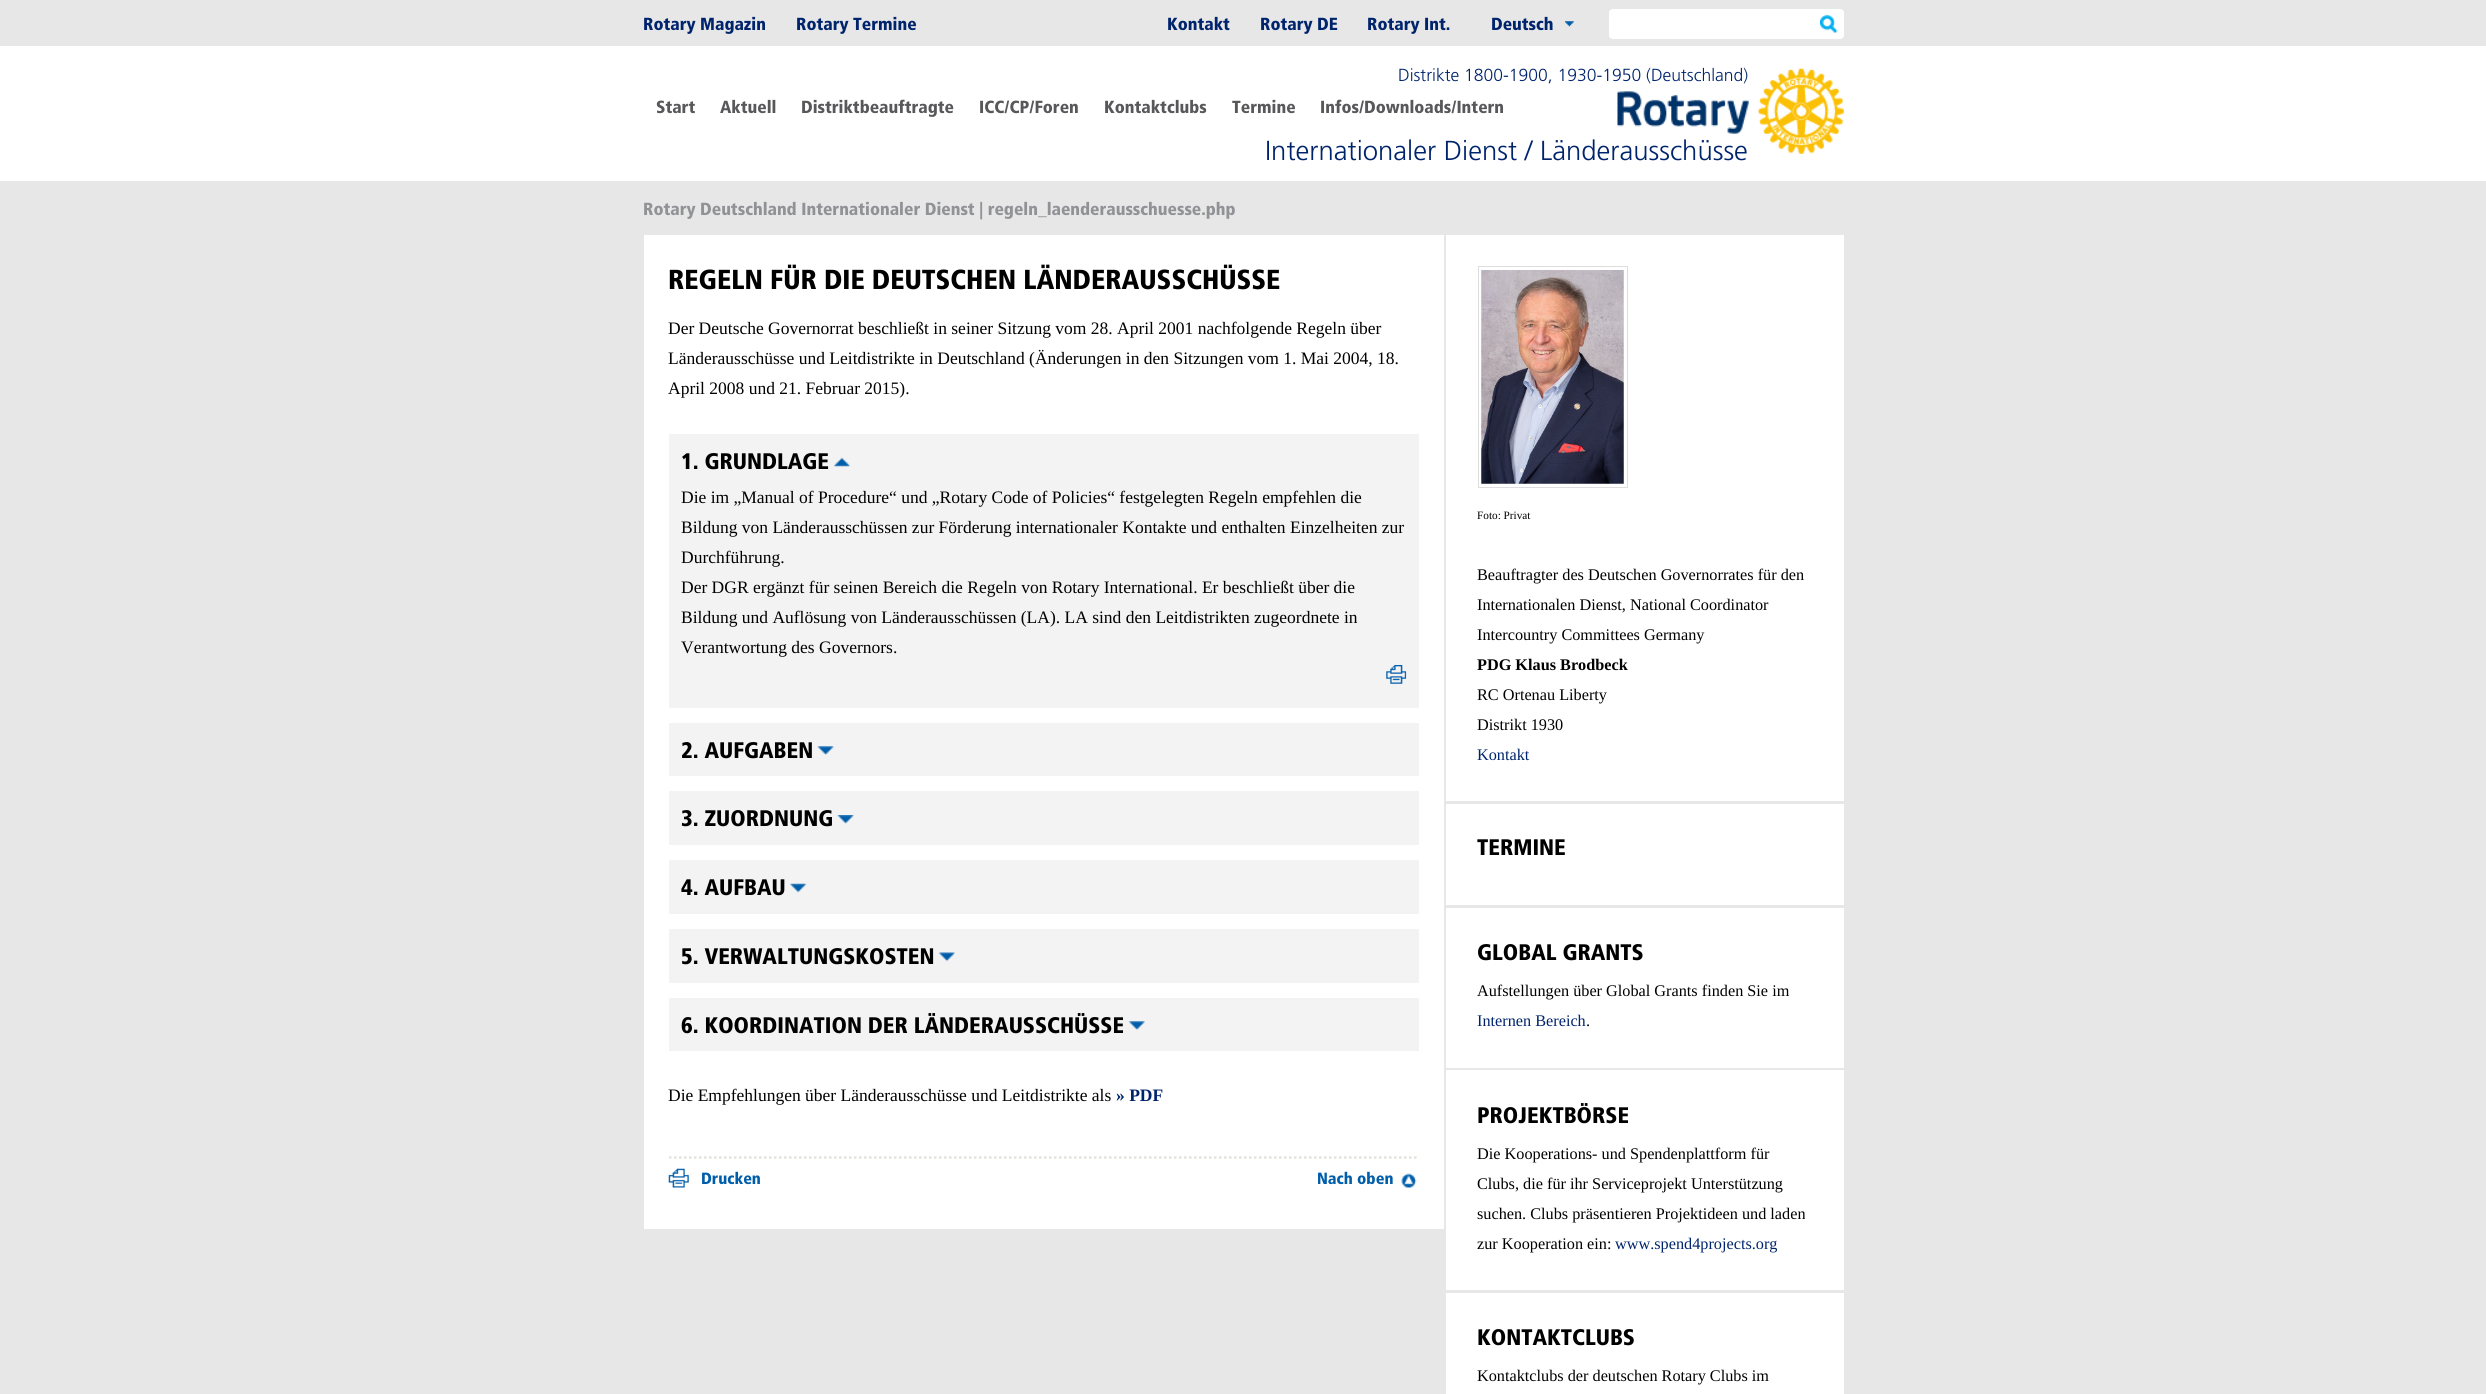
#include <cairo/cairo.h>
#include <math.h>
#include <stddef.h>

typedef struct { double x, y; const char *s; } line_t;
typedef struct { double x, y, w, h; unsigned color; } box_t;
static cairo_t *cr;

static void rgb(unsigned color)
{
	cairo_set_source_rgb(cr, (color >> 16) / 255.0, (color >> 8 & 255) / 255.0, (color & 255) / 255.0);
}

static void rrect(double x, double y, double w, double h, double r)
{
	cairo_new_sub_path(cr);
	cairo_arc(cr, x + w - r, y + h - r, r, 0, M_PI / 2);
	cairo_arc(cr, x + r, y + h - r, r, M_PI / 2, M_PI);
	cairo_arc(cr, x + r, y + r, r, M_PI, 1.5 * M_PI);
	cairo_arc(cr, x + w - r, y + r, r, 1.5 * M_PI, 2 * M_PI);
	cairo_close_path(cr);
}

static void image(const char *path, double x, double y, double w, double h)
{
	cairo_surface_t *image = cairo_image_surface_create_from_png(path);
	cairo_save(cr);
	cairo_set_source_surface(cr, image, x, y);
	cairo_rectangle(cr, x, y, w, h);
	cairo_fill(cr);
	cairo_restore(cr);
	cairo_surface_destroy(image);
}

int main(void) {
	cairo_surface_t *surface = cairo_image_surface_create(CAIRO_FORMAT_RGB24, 2486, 1394);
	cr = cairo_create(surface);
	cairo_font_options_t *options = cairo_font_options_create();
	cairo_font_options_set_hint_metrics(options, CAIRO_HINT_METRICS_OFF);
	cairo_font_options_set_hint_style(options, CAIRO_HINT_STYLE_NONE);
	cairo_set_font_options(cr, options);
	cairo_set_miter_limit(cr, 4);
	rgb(0xe7e7e8);
	cairo_paint(cr);
	image("img/1.png", 1565, 21, 9, 6);
	rgb(0xffffff);
	rrect(1609, 9, 235, 30, 4);
	cairo_fill(cr);
	image("img/2.png", 1820, 15, 18, 18);
	{
		static const box_t items[] = {
			{0, 46, 2486, 135, 0xffffff},
			{644, 235, 800, 994, 0xffffff},
			{669, 434, 750, 274, 0xf3f3f3},
		};
		for (size_t i = 0; i < sizeof items / sizeof *items; i++) {
			rgb(items[i].color);
			cairo_rectangle(cr, items[i].x, items[i].y, items[i].w, items[i].h);
			cairo_fill(cr);
		}
	}
	image("img/4.png", 833, 457, 17, 10);
	image("img/5.png", 1386, 665, 21, 19);
	cairo_rectangle(cr, 669, 723, 750, 53);
	cairo_fill(cr);
	image("img/6.png", 817, 746, 17, 9);
	cairo_rectangle(cr, 669, 791, 750, 54);
	cairo_fill(cr);
	image("img/7.png", 837, 815, 17, 9);
	cairo_rectangle(cr, 669, 860, 750, 54);
	cairo_fill(cr);
	image("img/8.png", 790, 883, 17, 10);
	cairo_rectangle(cr, 669, 929, 750, 54);
	cairo_fill(cr);
	image("img/9.png", 938, 952, 17, 10);
	cairo_rectangle(cr, 669, 998, 750, 53);
	cairo_fill(cr);
	image("img/10.png", 1128, 1021, 17, 9);
	cairo_new_path(cr);
	cairo_move_to(cr, 669, 1157.5);
	cairo_line_to(cr, 1419, 1157.5);
	rgb(0xe5e3db);
	cairo_set_line_width(cr, 2.5);
	cairo_set_dash(cr, (double[]){2.5, 2.5}, 2, 0);
	cairo_stroke(cr);
	image("img/11.png", 668, 1168, 21, 20);
	image("img/12.png", 1401, 1173, 16, 15);
	rgb(0xffffff);
	cairo_rectangle(cr, 1446, 235, 398, 566);
	cairo_fill(cr);
	cairo_rectangle(cr, 1478.5, 266.5, 149, 221);
	rgb(0xdddddd);
	cairo_set_line_width(cr, 1);
	cairo_set_dash(cr, NULL, 0, 0);
	cairo_stroke(cr);
	image("img/13.png", 1481, 270, 143, 214);
	{
		static const box_t items[] = {
			{1446, 804, 398, 101, 0xffffff},
			{1446, 908, 398, 160, 0xffffff},
			{1446, 1070, 398, 220, 0xffffff},
			{1446, 1293, 398, 101, 0xffffff},
		};
		for (size_t i = 0; i < sizeof items / sizeof *items; i++) {
			rgb(items[i].color);
			cairo_rectangle(cr, items[i].x, items[i].y, items[i].w, items[i].h);
			cairo_fill(cr);
		}
	}
	cairo_select_font_face(cr, "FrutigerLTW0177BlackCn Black", CAIRO_FONT_SLANT_NORMAL, CAIRO_FONT_WEIGHT_NORMAL);
	cairo_set_font_size(cr, 17.5);
	rgb(0x00246c);
	{
		static const line_t items[] = {
			{643, 30, "Rotary Magazin"},
			{796, 30, "Rotary Termine"},
			{1167, 30, "Kontakt"},
			{1260, 30, "Rotary DE"},
			{1367, 30, "Rotary Int."},
			{1491, 30, "Deutsch"},
		};
		for (size_t i = 0; i < sizeof items / sizeof *items; i++) {
			cairo_move_to(cr, items[i].x, items[i].y);
			cairo_show_text(cr, items[i].s);
		}
	}
	rgb(0x58585a);
	{
		static const line_t items[] = {
			{656, 113, "Start"},
			{720, 113, "Aktuell"},
			{801, 113, "Distriktbeauftragte"},
			{979, 113, "ICC/CP/Foren"},
			{1104, 113, "Kontaktclubs"},
			{1232, 113, "Termine"},
			{1320, 113, "Infos/Downloads/Intern"},
		};
		for (size_t i = 0; i < sizeof items / sizeof *items; i++) {
			cairo_move_to(cr, items[i].x, items[i].y);
			cairo_show_text(cr, items[i].s);
		}
	}
	cairo_select_font_face(cr, "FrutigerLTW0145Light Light", CAIRO_FONT_SLANT_NORMAL, CAIRO_FONT_WEIGHT_NORMAL);
	rgb(0x00246c);
	cairo_move_to(cr, 1398, 81);
	cairo_show_text(cr, "Distrikte 1800-1900, 1930-1950 (Deutschland)");
	image("img/3.png", 1617, 68, 227, 86);
	cairo_set_font_size(cr, 27.5);
	cairo_move_to(cr, 1265, 160);
	cairo_show_text(cr, "Internationaler Dienst / Länderausschüsse");
	cairo_select_font_face(cr, "FrutigerLTW0177BlackCn Black", CAIRO_FONT_SLANT_NORMAL, CAIRO_FONT_WEIGHT_NORMAL);
	cairo_set_font_size(cr, 17.5);
	rgb(0x919295);
	cairo_move_to(cr, 643, 215);
	cairo_show_text(cr, "Rotary Deutschland Internationaler Dienst | regeln_laenderausschuesse.php");
	cairo_set_font_size(cr, 27.5);
	rgb(0x000000);
	cairo_move_to(cr, 668, 289);
	cairo_show_text(cr, "REGELN FÜR DIE DEUTSCHEN LÄNDERAUSSCHÜSSE");
	cairo_select_font_face(cr, "Liberation Serif", CAIRO_FONT_SLANT_NORMAL, CAIRO_FONT_WEIGHT_NORMAL);
	cairo_set_font_size(cr, 17.5);
	{
		static const line_t items[] = {
			{668, 334, "Der Deutsche Governorrat beschließt in seiner Sitzung vom 28. April 2001 nachfolgende Regeln über"},
			{668, 364, "Länderausschüsse und Leitdistrikte in Deutschland (Änderungen in den Sitzungen vom 1. Mai 2004, 18."},
			{668, 394, "April 2008 und 21. Februar 2015)."},
		};
		for (size_t i = 0; i < sizeof items / sizeof *items; i++) {
			cairo_move_to(cr, items[i].x, items[i].y);
			cairo_show_text(cr, items[i].s);
		}
	}
	cairo_select_font_face(cr, "FrutigerLTW0177BlackCn Black", CAIRO_FONT_SLANT_NORMAL, CAIRO_FONT_WEIGHT_NORMAL);
	cairo_set_font_size(cr, 22.5);
	cairo_move_to(cr, 681, 469);
	cairo_show_text(cr, "1. GRUNDLAGE");
	cairo_select_font_face(cr, "Liberation Serif", CAIRO_FONT_SLANT_NORMAL, CAIRO_FONT_WEIGHT_NORMAL);
	cairo_set_font_size(cr, 17.5);
	{
		static const line_t items[] = {
			{681, 503, "Die im „Manual of Procedure“ und „Rotary Code of Policies“ festgelegten Regeln empfehlen die"},
			{681, 533, "Bildung von Länderausschüssen zur Förderung internationaler Kontakte und enthalten Einzelheiten zur"},
			{681, 563, "Durchführung."},
			{681, 593, "Der DGR ergänzt für seinen Bereich die Regeln von Rotary International. Er beschließt über die"},
			{681, 623, "Bildung und Auflösung von Länderausschüssen (LA). LA sind den Leitdistrikten zugeordnete in"},
			{681, 653, "Verantwortung des Governors."},
		};
		for (size_t i = 0; i < sizeof items / sizeof *items; i++) {
			cairo_move_to(cr, items[i].x, items[i].y);
			cairo_show_text(cr, items[i].s);
		}
	}
	cairo_select_font_face(cr, "FrutigerLTW0177BlackCn Black", CAIRO_FONT_SLANT_NORMAL, CAIRO_FONT_WEIGHT_NORMAL);
	cairo_set_font_size(cr, 22.5);
	{
		static const line_t items[] = {
			{681, 758, "2. AUFGABEN"},
			{681, 826, "3. ZUORDNUNG"},
			{681, 895, "4. AUFBAU"},
			{681, 964, "5. VERWALTUNGSKOSTEN"},
			{681, 1033, "6. KOORDINATION DER LÄNDERAUSSCHÜSSE"},
		};
		for (size_t i = 0; i < sizeof items / sizeof *items; i++) {
			cairo_move_to(cr, items[i].x, items[i].y);
			cairo_show_text(cr, items[i].s);
		}
	}
	cairo_select_font_face(cr, "Liberation Serif", CAIRO_FONT_SLANT_NORMAL, CAIRO_FONT_WEIGHT_NORMAL);
	cairo_set_font_size(cr, 17.5);
	cairo_move_to(cr, 668, 1101);
	cairo_show_text(cr, "Die Empfehlungen über Länderausschüsse und Leitdistrikte als");
	cairo_select_font_face(cr, "Liberation Serif", CAIRO_FONT_SLANT_NORMAL, CAIRO_FONT_WEIGHT_BOLD);
	rgb(0x00246c);
	cairo_move_to(cr, 1116, 1101);
	cairo_show_text(cr, "» PDF");
	cairo_select_font_face(cr, "FrutigerLTW0177BlackCn Black", CAIRO_FONT_SLANT_NORMAL, CAIRO_FONT_WEIGHT_NORMAL);
	cairo_set_font_size(cr, 16.25);
	rgb(0x005daa);
	cairo_move_to(cr, 701, 1184);
	cairo_show_text(cr, "Drucken");
	cairo_move_to(cr, 1317, 1184);
	cairo_show_text(cr, "Nach oben");
	cairo_select_font_face(cr, "Liberation Serif", CAIRO_FONT_SLANT_NORMAL, CAIRO_FONT_WEIGHT_NORMAL);
	cairo_set_font_size(cr, 11.25);
	rgb(0x000000);
	cairo_move_to(cr, 1477, 519);
	cairo_show_text(cr, "Foto: Privat");
	cairo_set_font_size(cr, 16.25);
	{
		static const line_t items[] = {
			{1477, 580, "Beauftragter des Deutschen Governorrates für den"},
			{1477, 610, "Internationalen Dienst, National Coordinator"},
			{1477, 640, "Intercountry Committees Germany"},
		};
		for (size_t i = 0; i < sizeof items / sizeof *items; i++) {
			cairo_move_to(cr, items[i].x, items[i].y);
			cairo_show_text(cr, items[i].s);
		}
	}
	cairo_select_font_face(cr, "Liberation Serif", CAIRO_FONT_SLANT_NORMAL, CAIRO_FONT_WEIGHT_BOLD);
	cairo_move_to(cr, 1477, 670);
	cairo_show_text(cr, "PDG Klaus Brodbeck");
	cairo_select_font_face(cr, "Liberation Serif", CAIRO_FONT_SLANT_NORMAL, CAIRO_FONT_WEIGHT_NORMAL);
	cairo_move_to(cr, 1477, 700);
	cairo_show_text(cr, "RC Ortenau Liberty");
	cairo_move_to(cr, 1477, 730);
	cairo_show_text(cr, "Distrikt 1930");
	rgb(0x00246c);
	cairo_move_to(cr, 1477, 760);
	cairo_show_text(cr, "Kontakt");
	cairo_select_font_face(cr, "FrutigerLTW0177BlackCn Black", CAIRO_FONT_SLANT_NORMAL, CAIRO_FONT_WEIGHT_NORMAL);
	cairo_set_font_size(cr, 22.5);
	rgb(0x000000);
	cairo_move_to(cr, 1477, 855);
	cairo_show_text(cr, "TERMINE");
	cairo_move_to(cr, 1477, 960);
	cairo_show_text(cr, "GLOBAL GRANTS");
	cairo_select_font_face(cr, "Liberation Serif", CAIRO_FONT_SLANT_NORMAL, CAIRO_FONT_WEIGHT_NORMAL);
	cairo_set_font_size(cr, 16.25);
	cairo_move_to(cr, 1477, 996);
	cairo_show_text(cr, "Aufstellungen über Global Grants finden Sie im");
	rgb(0x00246c);
	cairo_move_to(cr, 1477, 1026);
	cairo_show_text(cr, "Internen Bereich");
	rgb(0x000000);
	cairo_move_to(cr, 1586, 1026);
	cairo_show_text(cr, ".");
	cairo_select_font_face(cr, "FrutigerLTW0177BlackCn Black", CAIRO_FONT_SLANT_NORMAL, CAIRO_FONT_WEIGHT_NORMAL);
	cairo_set_font_size(cr, 22.5);
	cairo_move_to(cr, 1477, 1123);
	cairo_show_text(cr, "PROJEKTBÖRSE");
	cairo_select_font_face(cr, "Liberation Serif", CAIRO_FONT_SLANT_NORMAL, CAIRO_FONT_WEIGHT_NORMAL);
	cairo_set_font_size(cr, 16.25);
	{
		static const line_t items[] = {
			{1477, 1159, "Die Kooperations- und Spendenplattform für"},
			{1477, 1189, "Clubs, die für ihr Serviceprojekt Unterstützung"},
			{1477, 1219, "suchen. Clubs präsentieren Projektideen und laden"},
			{1477, 1249, "zur Kooperation ein:"},
		};
		for (size_t i = 0; i < sizeof items / sizeof *items; i++) {
			cairo_move_to(cr, items[i].x, items[i].y);
			cairo_show_text(cr, items[i].s);
		}
	}
	rgb(0x00246c);
	cairo_move_to(cr, 1615, 1249);
	cairo_show_text(cr, "www.spend4projects.org");
	cairo_select_font_face(cr, "FrutigerLTW0177BlackCn Black", CAIRO_FONT_SLANT_NORMAL, CAIRO_FONT_WEIGHT_NORMAL);
	cairo_set_font_size(cr, 22.5);
	rgb(0x000000);
	cairo_move_to(cr, 1477, 1345);
	cairo_show_text(cr, "KONTAKTCLUBS");
	cairo_select_font_face(cr, "Liberation Serif", CAIRO_FONT_SLANT_NORMAL, CAIRO_FONT_WEIGHT_NORMAL);
	cairo_set_font_size(cr, 16.25);
	cairo_move_to(cr, 1477, 1381);
	cairo_show_text(cr, "Kontaktclubs der deutschen Rotary Clubs im");
	cairo_surface_write_to_png(surface, "page.png");
	cairo_font_options_destroy(options);
	cairo_destroy(cr);
	cairo_surface_destroy(surface);
	return 0;
}
